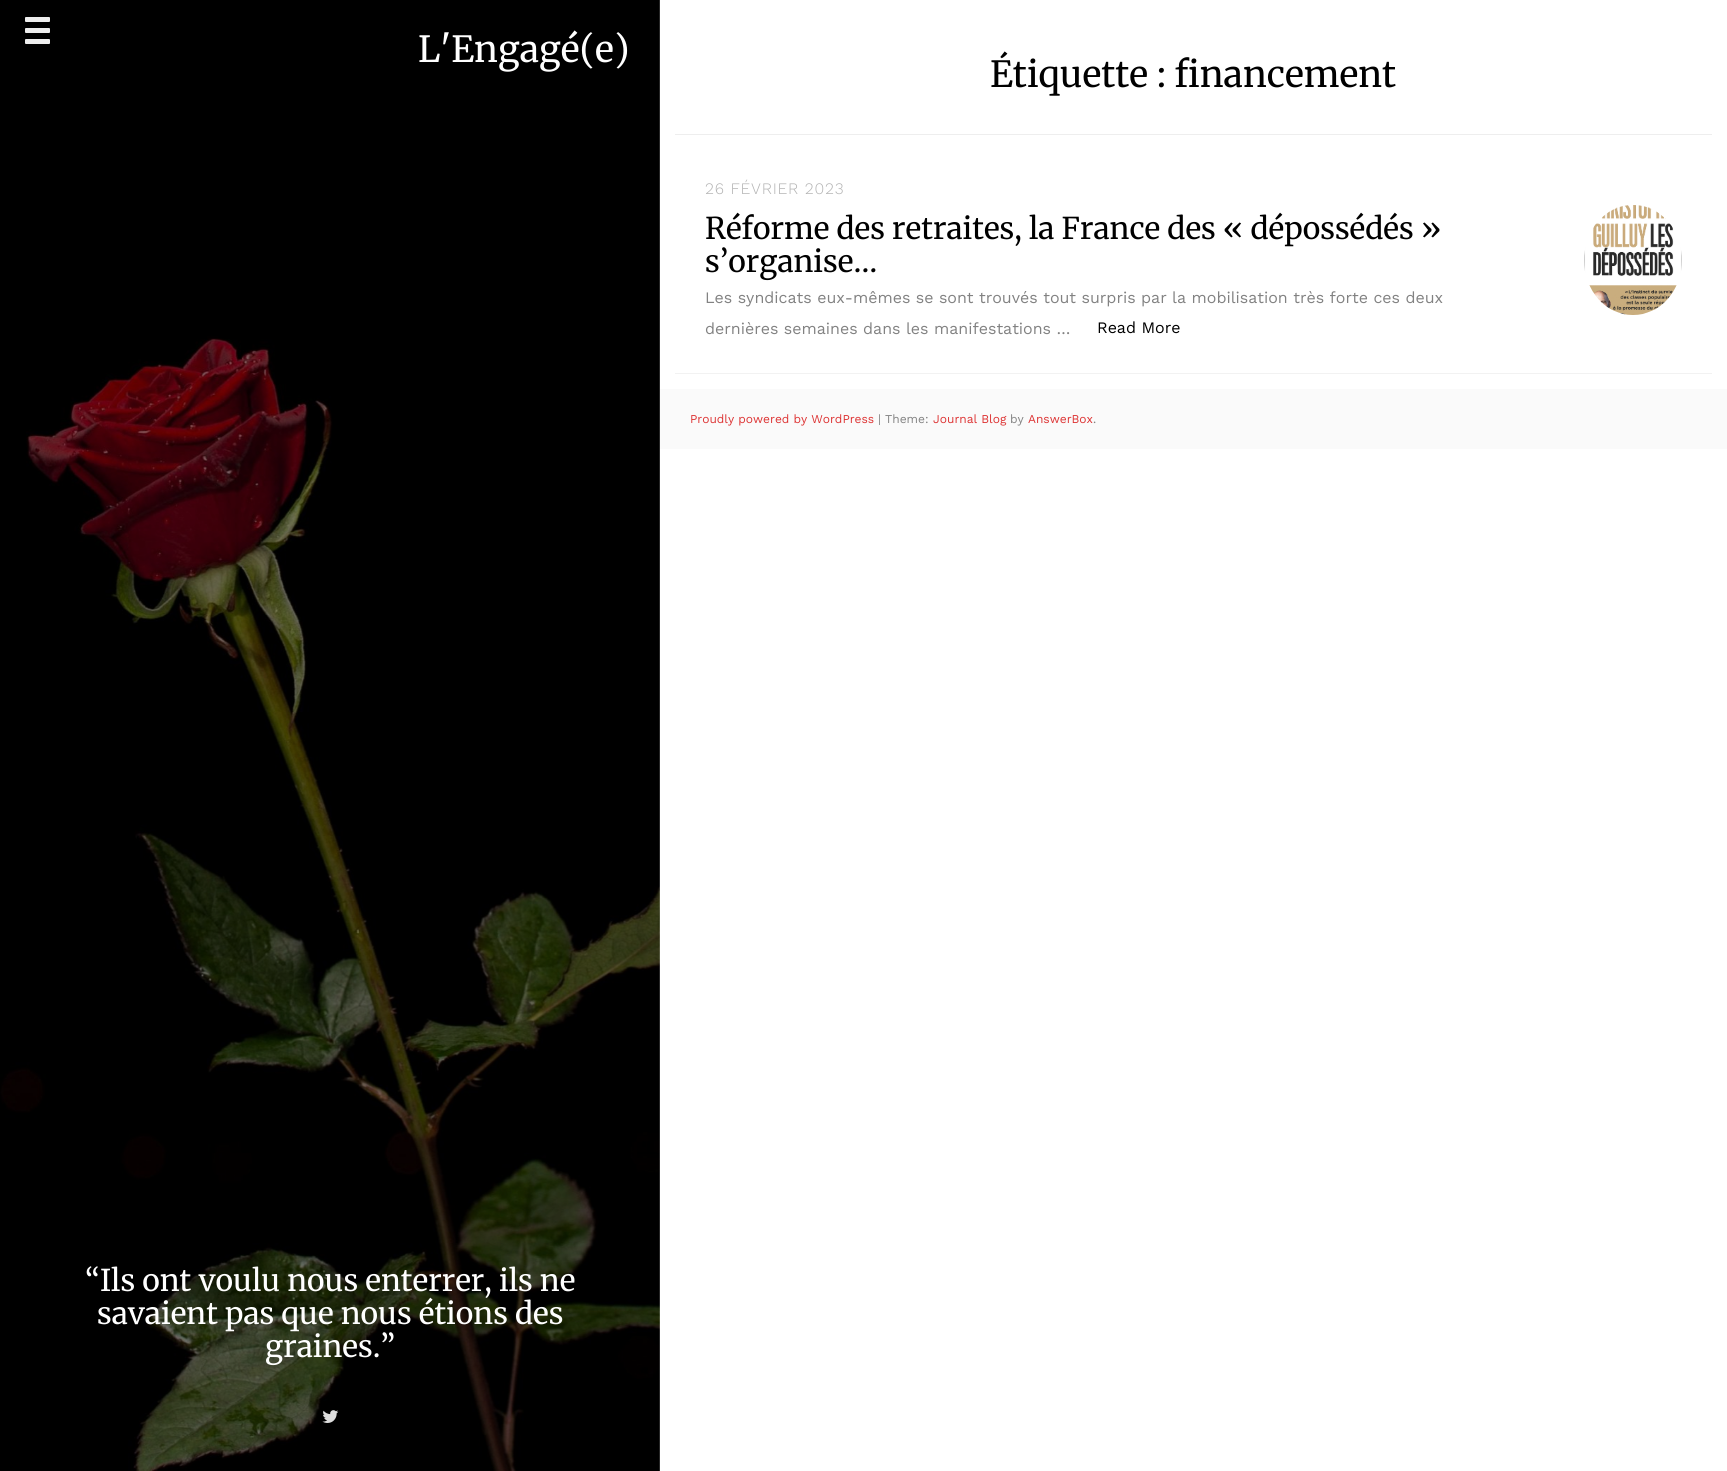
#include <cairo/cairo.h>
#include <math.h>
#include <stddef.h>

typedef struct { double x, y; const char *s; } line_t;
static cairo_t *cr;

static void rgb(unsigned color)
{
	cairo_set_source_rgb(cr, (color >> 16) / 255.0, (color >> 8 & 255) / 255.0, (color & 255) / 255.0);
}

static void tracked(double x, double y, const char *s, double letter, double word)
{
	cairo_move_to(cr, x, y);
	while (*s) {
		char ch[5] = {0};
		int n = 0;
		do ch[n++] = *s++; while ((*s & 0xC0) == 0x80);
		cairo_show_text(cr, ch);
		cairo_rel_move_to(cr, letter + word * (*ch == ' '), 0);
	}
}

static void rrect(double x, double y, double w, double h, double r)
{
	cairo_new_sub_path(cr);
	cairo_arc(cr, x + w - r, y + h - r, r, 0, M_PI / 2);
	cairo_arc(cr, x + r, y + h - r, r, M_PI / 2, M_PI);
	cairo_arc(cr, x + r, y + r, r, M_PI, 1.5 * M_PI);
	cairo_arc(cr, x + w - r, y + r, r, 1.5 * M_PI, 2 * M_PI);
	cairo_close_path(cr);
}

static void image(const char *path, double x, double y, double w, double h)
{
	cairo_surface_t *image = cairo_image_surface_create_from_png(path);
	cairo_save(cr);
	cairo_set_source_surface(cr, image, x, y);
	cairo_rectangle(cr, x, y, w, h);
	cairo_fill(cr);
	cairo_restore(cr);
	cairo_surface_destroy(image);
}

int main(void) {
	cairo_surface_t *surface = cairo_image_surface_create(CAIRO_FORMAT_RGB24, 1727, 1471);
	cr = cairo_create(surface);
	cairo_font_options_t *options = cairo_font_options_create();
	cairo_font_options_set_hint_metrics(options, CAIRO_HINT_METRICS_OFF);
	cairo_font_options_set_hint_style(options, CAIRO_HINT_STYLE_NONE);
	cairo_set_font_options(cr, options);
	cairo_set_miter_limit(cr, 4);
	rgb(0xffffff);
	cairo_paint(cr);
	image("img/1.png", 0, 0, 660, 1471);
	rgb(0xeeeeee);
	rrect(25, 28, 25, 5, 1);
	cairo_fill(cr);
	rrect(25, 17, 25, 5, 1);
	cairo_fill(cr);
	rrect(25, 39, 25, 5, 1);
	cairo_fill(cr);
	image("img/2.png", 322, 1410, 17, 13);
	cairo_rectangle(cr, 675, 134, 1037, 1);
	cairo_fill(cr);
	rgb(0xf2f2f2);
	cairo_rectangle(cr, 675, 373, 1037, 1);
	cairo_fill(cr);
	image("img/3.png", 1584, 205, 98, 110);
	rgb(0xfafafa);
	cairo_rectangle(cr, 660, 389, 1067, 60);
	cairo_fill(cr);
	cairo_select_font_face(cr, "Merriweather Light", CAIRO_FONT_SLANT_NORMAL, CAIRO_FONT_WEIGHT_NORMAL);
	cairo_set_font_size(cr, 36);
	rgb(0xffffff);
	cairo_move_to(cr, 418, 62);
	cairo_show_text(cr, "L'Engagé(e)");
	cairo_set_font_size(cr, 30);
	{
		static const line_t items[] = {
			{85, 1291, "“Ils ont voulu nous enterrer, ils ne"},
			{97, 1324, "savaient pas que nous étions des"},
			{265, 1357, "graines.”"},
		};
		for (size_t i = 0; i < sizeof items / sizeof *items; i++) {
			cairo_move_to(cr, items[i].x, items[i].y);
			cairo_show_text(cr, items[i].s);
		}
	}
	cairo_set_font_size(cr, 36);
	rgb(0x000000);
	cairo_move_to(cr, 990, 87);
	cairo_show_text(cr, "Étiquette : financement");
	cairo_select_font_face(cr, "Work Sans Light", CAIRO_FONT_SLANT_NORMAL, CAIRO_FONT_WEIGHT_NORMAL);
	cairo_set_font_size(cr, 16);
	rgb(0xb3b3b3);
	tracked(705, 194, "26 FÉVRIER 2023", 0.75, 0);
	cairo_select_font_face(cr, "Merriweather Light", CAIRO_FONT_SLANT_NORMAL, CAIRO_FONT_WEIGHT_NORMAL);
	cairo_set_font_size(cr, 30);
	rgb(0x000000);
	cairo_move_to(cr, 705, 239);
	cairo_show_text(cr, "Réforme des retraites, la France des « dépossédés »");
	cairo_move_to(cr, 705, 272);
	cairo_show_text(cr, "s’organise…");
	cairo_select_font_face(cr, "Work Sans", CAIRO_FONT_SLANT_NORMAL, CAIRO_FONT_WEIGHT_NORMAL);
	cairo_set_font_size(cr, 16);
	rgb(0x828282);
	cairo_move_to(cr, 705, 303);
	cairo_show_text(cr, "Les syndicats eux-mêmes se sont trouvés tout surpris par la mobilisation très forte ces deux");
	cairo_move_to(cr, 705, 334);
	cairo_show_text(cr, "dernières semaines dans les manifestations …");
	rgb(0x000000);
	cairo_move_to(cr, 1097, 333);
	cairo_show_text(cr, "Read More");
	cairo_set_font_size(cr, 12);
	rgb(0xdd3333);
	cairo_move_to(cr, 690, 423);
	cairo_show_text(cr, "Proudly powered by WordPress");
	rgb(0x828282);
	cairo_move_to(cr, 878, 423);
	cairo_show_text(cr, "| Theme:");
	rgb(0xdd3333);
	cairo_move_to(cr, 933, 423);
	cairo_show_text(cr, "Journal Blog");
	rgb(0x828282);
	cairo_move_to(cr, 1010, 423);
	cairo_show_text(cr, "by");
	rgb(0xdd3333);
	cairo_move_to(cr, 1028, 423);
	cairo_show_text(cr, "AnswerBox");
	rgb(0x828282);
	cairo_move_to(cr, 1093, 423);
	cairo_show_text(cr, ".");
	cairo_surface_write_to_png(surface, "page.png");
	cairo_font_options_destroy(options);
	cairo_destroy(cr);
	cairo_surface_destroy(surface);
	return 0;
}
